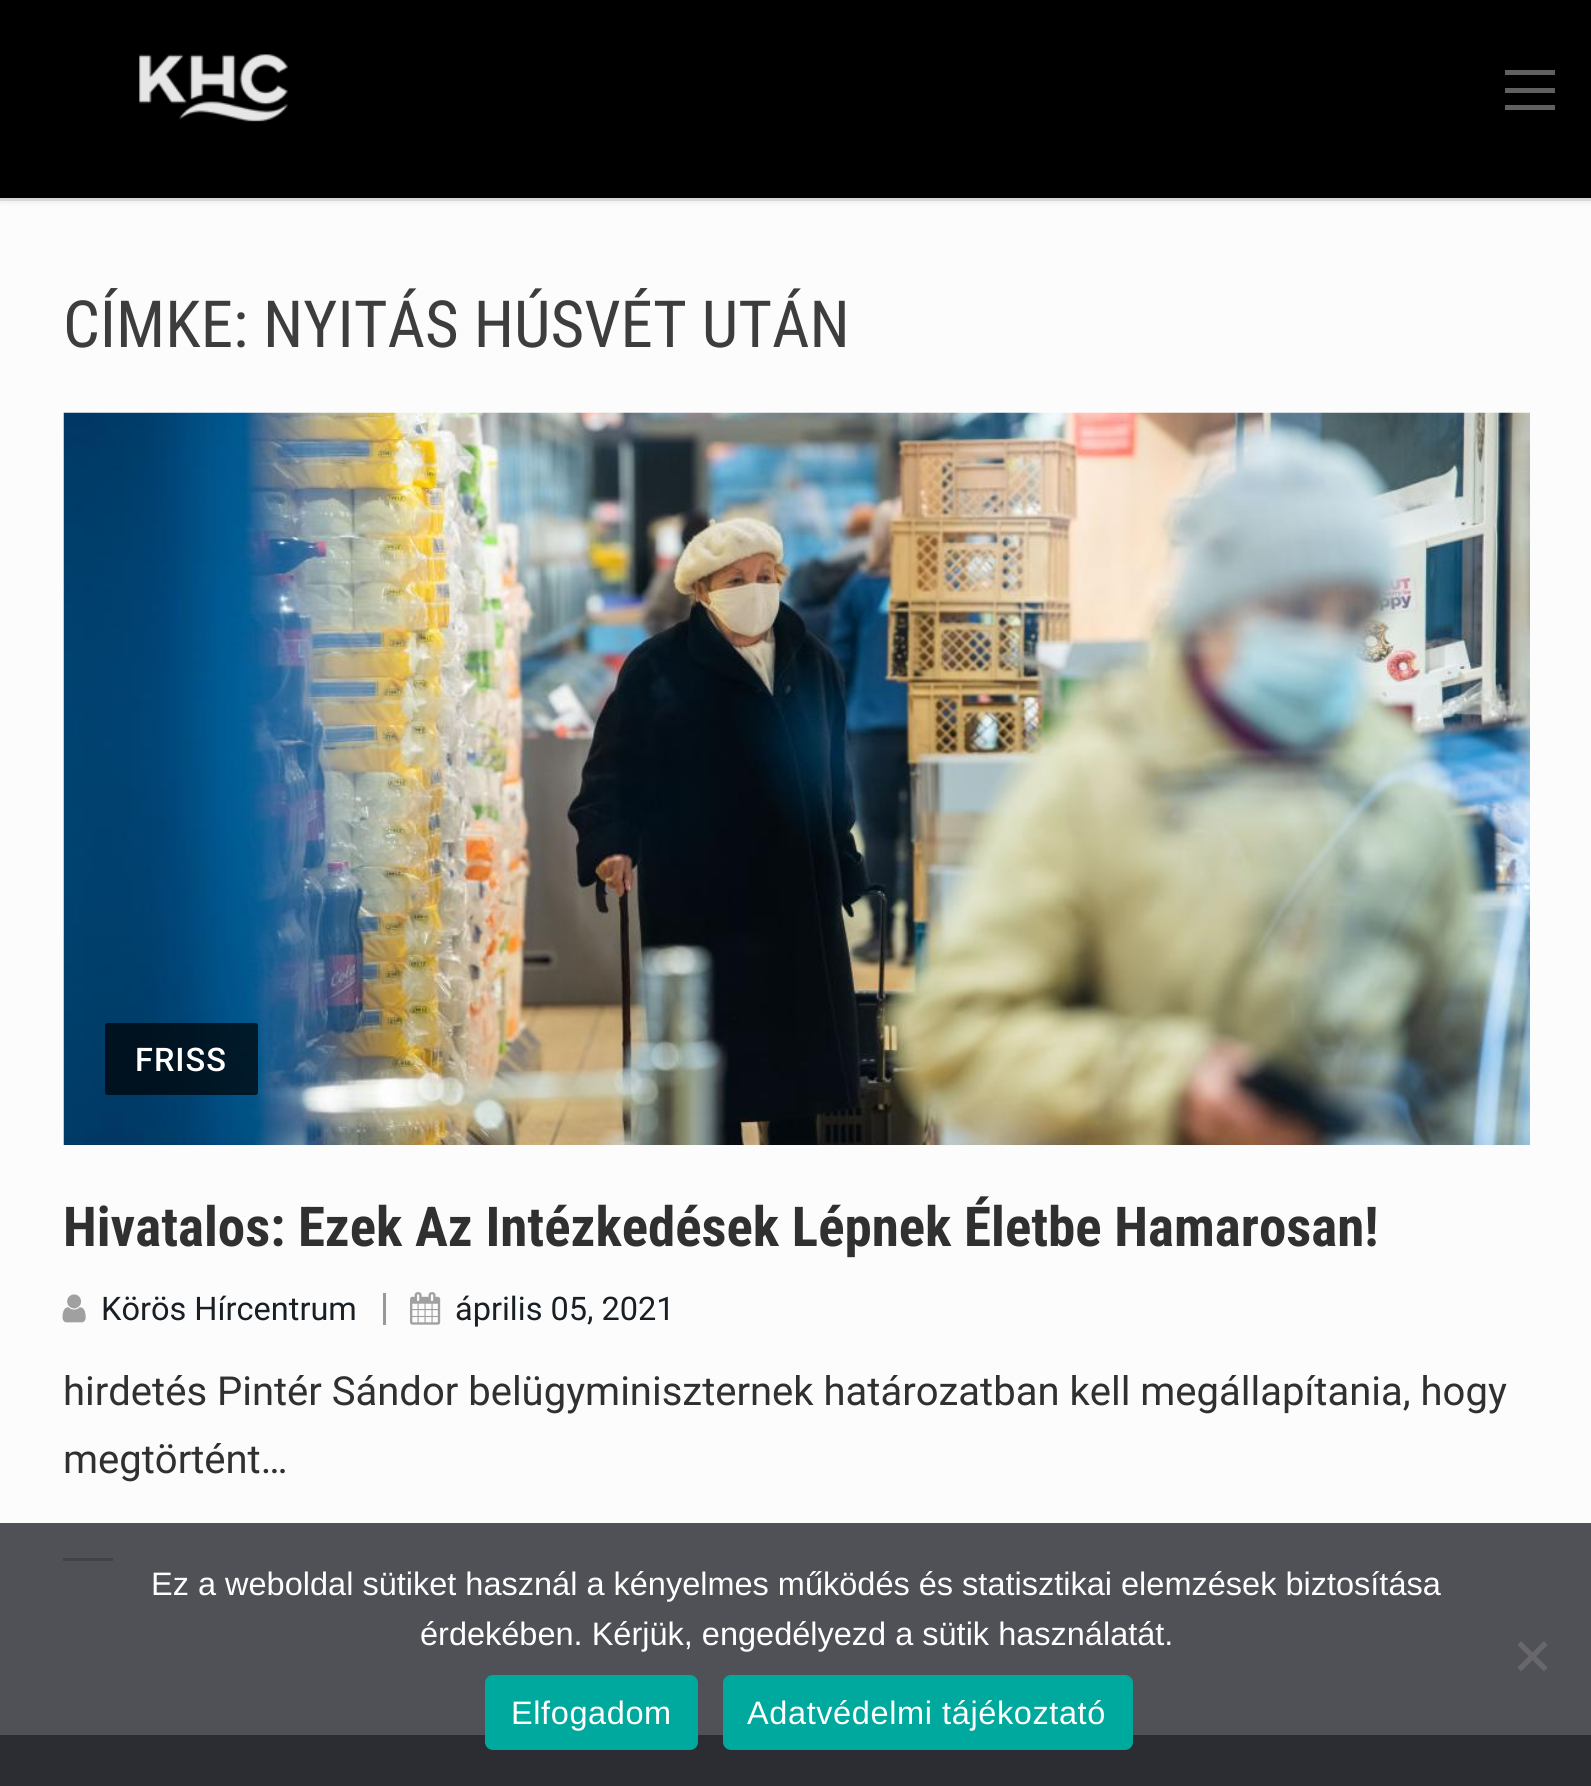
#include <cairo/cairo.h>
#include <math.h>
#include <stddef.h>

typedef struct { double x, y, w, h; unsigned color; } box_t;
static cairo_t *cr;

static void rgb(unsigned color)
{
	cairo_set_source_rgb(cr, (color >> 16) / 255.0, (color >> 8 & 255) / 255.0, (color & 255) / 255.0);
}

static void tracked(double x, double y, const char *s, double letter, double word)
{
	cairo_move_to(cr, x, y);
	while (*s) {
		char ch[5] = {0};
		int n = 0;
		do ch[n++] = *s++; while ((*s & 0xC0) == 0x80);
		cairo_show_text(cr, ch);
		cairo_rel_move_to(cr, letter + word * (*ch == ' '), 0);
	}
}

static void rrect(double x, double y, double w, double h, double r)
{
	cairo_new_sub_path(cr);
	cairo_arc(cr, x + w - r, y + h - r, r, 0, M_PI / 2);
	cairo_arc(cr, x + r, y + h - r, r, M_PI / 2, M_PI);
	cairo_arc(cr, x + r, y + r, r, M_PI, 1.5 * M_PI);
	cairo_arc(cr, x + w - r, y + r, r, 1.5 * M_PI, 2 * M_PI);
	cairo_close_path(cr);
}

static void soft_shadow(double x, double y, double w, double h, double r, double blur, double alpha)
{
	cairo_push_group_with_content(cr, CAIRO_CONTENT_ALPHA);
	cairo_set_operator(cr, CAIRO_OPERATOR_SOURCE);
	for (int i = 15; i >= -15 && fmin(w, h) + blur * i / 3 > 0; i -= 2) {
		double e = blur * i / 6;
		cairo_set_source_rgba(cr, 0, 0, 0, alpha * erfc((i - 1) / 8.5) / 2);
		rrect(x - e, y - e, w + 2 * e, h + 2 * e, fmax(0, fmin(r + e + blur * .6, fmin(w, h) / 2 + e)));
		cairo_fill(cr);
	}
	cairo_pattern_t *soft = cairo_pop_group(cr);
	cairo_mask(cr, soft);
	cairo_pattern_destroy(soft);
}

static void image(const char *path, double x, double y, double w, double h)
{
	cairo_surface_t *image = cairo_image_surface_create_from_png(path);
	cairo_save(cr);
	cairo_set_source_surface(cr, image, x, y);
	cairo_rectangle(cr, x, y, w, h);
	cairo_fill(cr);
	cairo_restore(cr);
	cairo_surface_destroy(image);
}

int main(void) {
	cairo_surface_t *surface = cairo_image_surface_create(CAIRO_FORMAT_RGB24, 1591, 1786);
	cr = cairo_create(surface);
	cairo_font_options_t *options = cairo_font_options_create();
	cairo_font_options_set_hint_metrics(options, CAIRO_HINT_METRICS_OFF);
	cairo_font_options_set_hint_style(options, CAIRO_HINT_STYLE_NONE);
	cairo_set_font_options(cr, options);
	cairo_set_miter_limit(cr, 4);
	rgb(0xfcfcfc);
	cairo_paint(cr);
	{
		static const box_t items[] = {
			{0, 1523, 1591, 212, 0x505057},
			{0, 0, 1591, 198, 0x000000},
			{0, 198, 1591, 3, 0xe3e3e3},
		};
		for (size_t i = 0; i < sizeof items / sizeof *items; i++) {
			rgb(items[i].color);
			cairo_rectangle(cr, items[i].x, items[i].y, items[i].w, items[i].h);
			cairo_fill(cr);
		}
	}
	cairo_save(cr);
	cairo_set_fill_rule(cr, CAIRO_FILL_RULE_EVEN_ODD);
	cairo_new_path(cr);
	cairo_move_to(cr, 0, 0);
	cairo_line_to(cr, 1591, 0);
	cairo_line_to(cr, 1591, 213);
	cairo_line_to(cr, 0, 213);
	cairo_close_path(cr);
	cairo_move_to(cr, 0, 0);
	cairo_line_to(cr, 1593, 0);
	cairo_line_to(cr, 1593, 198);
	cairo_line_to(cr, 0, 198);
	cairo_close_path(cr);
	cairo_clip(cr);
	rgb(0x000000);
	soft_shadow(0, 3, 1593, 197, 0, 4, 0.11);
	cairo_restore(cr);
	image("img/1.png", 139, 54, 149, 68);
	{
		static const box_t items[] = {
			{1505, 70, 50, 5, 0x606060},
			{1505, 88, 50, 5, 0x606060},
			{1505, 105, 50, 5, 0x606060},
		};
		for (size_t i = 0; i < sizeof items / sizeof *items; i++) {
			rgb(items[i].color);
			cairo_rectangle(cr, items[i].x, items[i].y, items[i].w, items[i].h);
			cairo_fill(cr);
		}
	}
	image("img/2.png", 63, 412, 1467, 733);
	cairo_set_source_rgba(cr, 0, 0, 0, 0.7);
	rrect(105, 1023, 153, 72, 2.5);
	cairo_fill(cr);
	image("img/3.png", 62, 1294, 24, 29);
	rgb(0x999999);
	cairo_rectangle(cr, 383, 1293, 3, 32);
	cairo_fill(cr);
	image("img/4.png", 410, 1292, 31, 33);
	rgb(0x414148);
	cairo_rectangle(cr, 63, 1558, 50, 3);
	cairo_fill(cr);
	rgb(0x2c2c33);
	cairo_rectangle(cr, 0, 1735, 1591, 51);
	cairo_fill(cr);
	rgb(0x68686c);
	cairo_new_path(cr);
	cairo_move_to(cr, 1544, 1641);
	cairo_line_to(cr, 1547.5, 1645);
	cairo_line_to(cr, 1521, 1671.5);
	cairo_line_to(cr, 1517.5, 1667.5);
	cairo_close_path(cr);
	cairo_fill(cr);
	cairo_new_path(cr);
	cairo_move_to(cr, 1517.5, 1645);
	cairo_line_to(cr, 1521, 1641);
	cairo_line_to(cr, 1547.5, 1667.5);
	cairo_line_to(cr, 1544, 1671.5);
	cairo_close_path(cr);
	cairo_fill(cr);
	rgb(0x00a99d);
	rrect(485, 1675, 213, 75, 8);
	cairo_fill(cr);
	rrect(723, 1675, 410, 75, 8);
	cairo_fill(cr);
	cairo_select_font_face(cr, "Roboto Condensed", CAIRO_FONT_SLANT_NORMAL, CAIRO_FONT_WEIGHT_NORMAL);
	cairo_set_font_size(cr, 65);
	rgb(0x3d3d3d);
	cairo_move_to(cr, 63, 347);
	cairo_show_text(cr, "CÍMKE: NYITÁS HÚSVÉT UTÁN");
	cairo_select_font_face(cr, "Roboto Medium", CAIRO_FONT_SLANT_NORMAL, CAIRO_FONT_WEIGHT_NORMAL);
	cairo_set_font_size(cr, 32.5);
	rgb(0xffffff);
	tracked(135, 1071, "FRISS", 1, 0);
	cairo_select_font_face(cr, "Roboto Condensed", CAIRO_FONT_SLANT_NORMAL, CAIRO_FONT_WEIGHT_BOLD);
	cairo_set_font_size(cr, 55);
	rgb(0x303030);
	cairo_move_to(cr, 63, 1246);
	cairo_show_text(cr, "Hivatalos: Ezek Az Intézkedések Lépnek Életbe Hamarosan!");
	cairo_select_font_face(cr, "Roboto", CAIRO_FONT_SLANT_NORMAL, CAIRO_FONT_WEIGHT_NORMAL);
	cairo_set_font_size(cr, 32.5);
	rgb(0x181f25);
	cairo_move_to(cr, 101, 1320);
	cairo_show_text(cr, "Körös Hírcentrum");
	cairo_move_to(cr, 455, 1320);
	cairo_show_text(cr, "április 05, 2021");
	cairo_set_font_size(cr, 40);
	rgb(0x303030);
	cairo_move_to(cr, 63, 1405);
	cairo_show_text(cr, "hirdetés Pintér Sándor belügyminiszternek határozatban kell megállapítania, hogy");
	cairo_move_to(cr, 63, 1473);
	cairo_show_text(cr, "megtörtént…");
	cairo_select_font_face(cr, "Liberation Sans", CAIRO_FONT_SLANT_NORMAL, CAIRO_FONT_WEIGHT_NORMAL);
	cairo_set_font_size(cr, 32.5);
	rgb(0xffffff);
	cairo_move_to(cr, 151, 1595);
	cairo_show_text(cr, "Ez a weboldal sütiket használ a kényelmes működés és statisztikai elemzések biztosítása");
	cairo_move_to(cr, 420, 1645);
	cairo_show_text(cr, "érdekében. Kérjük, engedélyezd a sütik használatát.");
	tracked(511, 1724, "Elfogadom", 0.6, 0);
	tracked(747, 1724, "Adatvédelmi tájékoztató", 0.6, 0);
	cairo_surface_write_to_png(surface, "page.png");
	cairo_font_options_destroy(options);
	cairo_destroy(cr);
	cairo_surface_destroy(surface);
	return 0;
}
